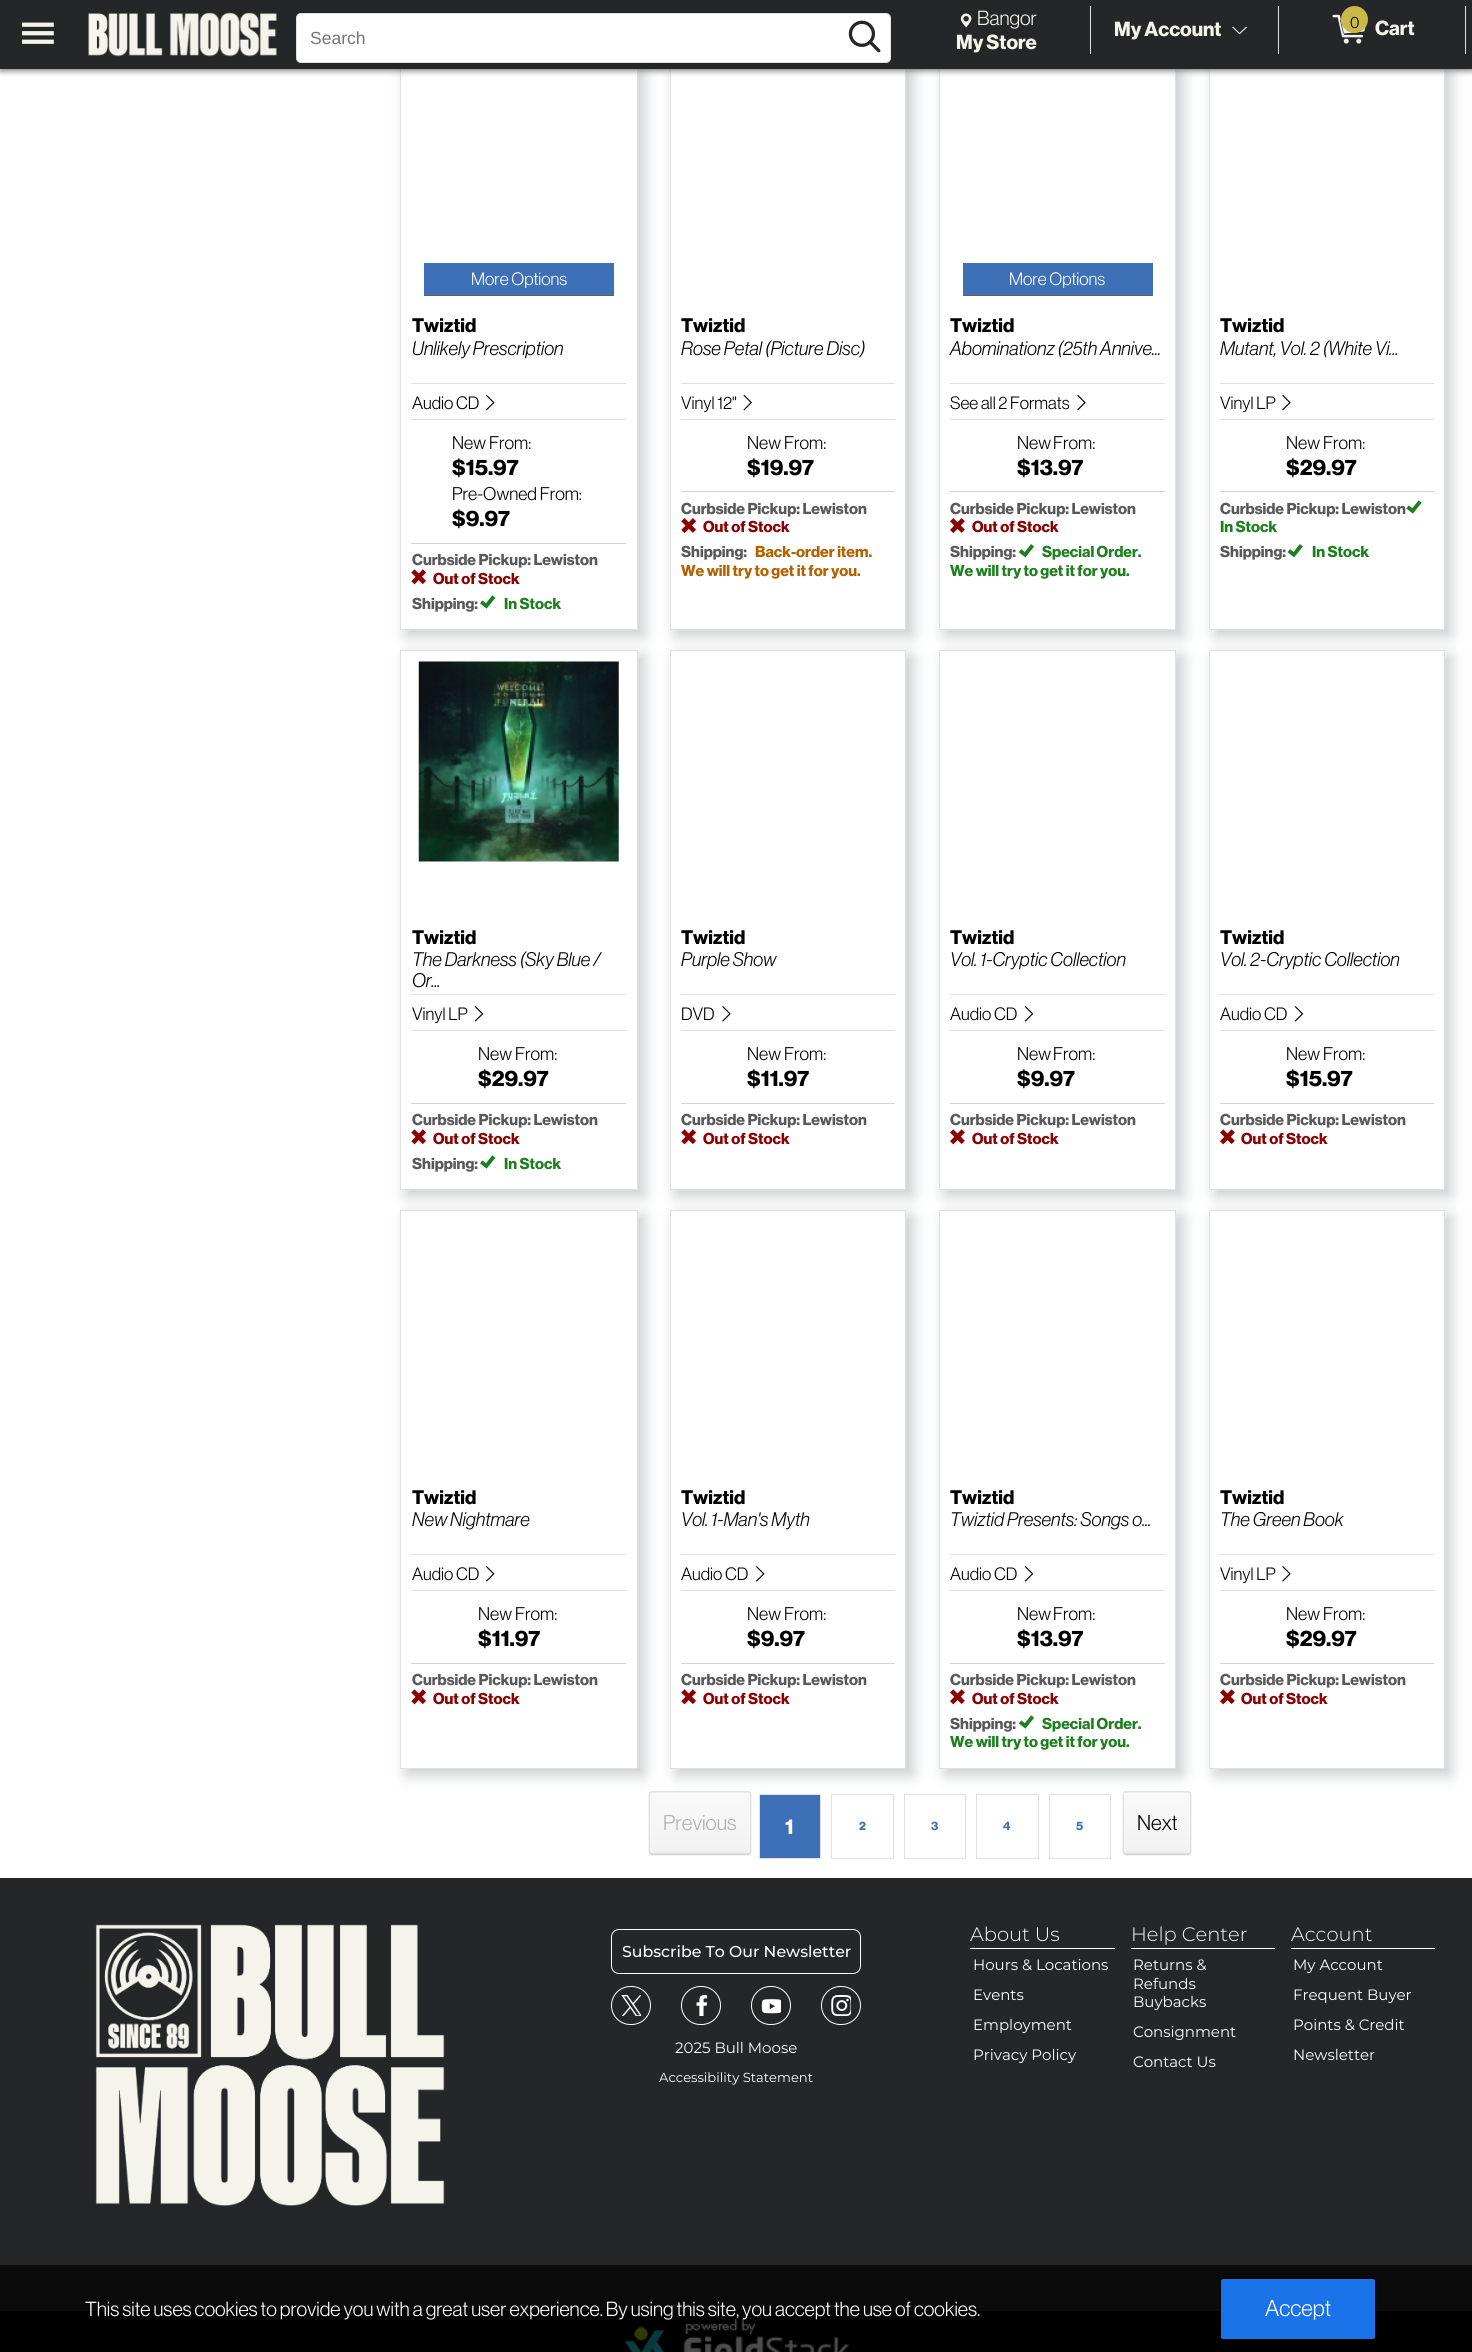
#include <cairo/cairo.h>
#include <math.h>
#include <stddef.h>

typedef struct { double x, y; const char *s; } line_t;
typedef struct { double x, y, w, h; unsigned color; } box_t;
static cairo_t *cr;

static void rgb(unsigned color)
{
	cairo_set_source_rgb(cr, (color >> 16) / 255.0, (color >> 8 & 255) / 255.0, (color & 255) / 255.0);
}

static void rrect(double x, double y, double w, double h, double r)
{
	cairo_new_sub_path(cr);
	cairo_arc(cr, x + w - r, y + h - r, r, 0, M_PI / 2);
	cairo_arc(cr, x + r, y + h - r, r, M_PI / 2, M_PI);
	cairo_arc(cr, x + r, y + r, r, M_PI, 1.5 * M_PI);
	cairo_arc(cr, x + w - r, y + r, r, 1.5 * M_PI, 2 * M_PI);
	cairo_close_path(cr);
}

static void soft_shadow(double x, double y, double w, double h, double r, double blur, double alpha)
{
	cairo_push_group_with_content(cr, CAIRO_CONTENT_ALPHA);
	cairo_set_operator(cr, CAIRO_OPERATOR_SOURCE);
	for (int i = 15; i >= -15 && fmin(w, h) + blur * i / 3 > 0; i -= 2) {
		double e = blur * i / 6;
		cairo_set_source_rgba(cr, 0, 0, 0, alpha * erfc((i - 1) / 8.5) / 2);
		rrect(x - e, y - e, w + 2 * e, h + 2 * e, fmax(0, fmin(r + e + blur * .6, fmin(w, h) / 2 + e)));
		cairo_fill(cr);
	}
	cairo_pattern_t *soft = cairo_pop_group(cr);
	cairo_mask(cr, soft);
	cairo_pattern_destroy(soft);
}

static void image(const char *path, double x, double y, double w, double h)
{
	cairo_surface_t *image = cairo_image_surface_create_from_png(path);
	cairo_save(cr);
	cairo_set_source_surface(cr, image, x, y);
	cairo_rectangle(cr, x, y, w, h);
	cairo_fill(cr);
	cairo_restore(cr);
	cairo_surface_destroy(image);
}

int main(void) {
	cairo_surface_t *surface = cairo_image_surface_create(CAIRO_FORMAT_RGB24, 1472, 2352);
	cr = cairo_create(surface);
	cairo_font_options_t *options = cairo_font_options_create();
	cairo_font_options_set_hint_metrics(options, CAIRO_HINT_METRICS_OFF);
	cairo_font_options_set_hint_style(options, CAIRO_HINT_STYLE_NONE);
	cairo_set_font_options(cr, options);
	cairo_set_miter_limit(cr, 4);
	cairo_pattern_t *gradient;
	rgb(0xffffff);
	cairo_paint(cr);
	cairo_save(cr);
	cairo_set_fill_rule(cr, CAIRO_FILL_RULE_EVEN_ODD);
	cairo_new_path(cr);
	cairo_move_to(cr, 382, 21);
	cairo_line_to(cr, 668, 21);
	cairo_line_to(cr, 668, 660);
	cairo_line_to(cr, 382, 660);
	cairo_close_path(cr);
	cairo_move_to(cr, 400, 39);
	cairo_line_to(cr, 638, 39);
	cairo_line_to(cr, 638, 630);
	cairo_line_to(cr, 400, 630);
	cairo_close_path(cr);
	cairo_clip(cr);
	rgb(0xc9cecf);
	soft_shadow(406, 45, 238, 591, 0, 7.5, 1);
	cairo_restore(cr);
	cairo_rectangle(cr, 400.5, 39.5, 237, 590);
	rgb(0xe0e0e0);
	cairo_set_line_width(cr, 1);
	cairo_stroke(cr);
	cairo_save(cr);
	cairo_set_fill_rule(cr, CAIRO_FILL_RULE_EVEN_ODD);
	cairo_new_path(cr);
	cairo_move_to(cr, 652, 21);
	cairo_line_to(cr, 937, 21);
	cairo_line_to(cr, 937, 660);
	cairo_line_to(cr, 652, 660);
	cairo_close_path(cr);
	cairo_move_to(cr, 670, 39);
	cairo_line_to(cr, 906, 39);
	cairo_line_to(cr, 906, 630);
	cairo_line_to(cr, 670, 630);
	cairo_close_path(cr);
	cairo_clip(cr);
	rgb(0xc9cecf);
	soft_shadow(676, 45, 237, 591, 0, 7.5, 1);
	cairo_restore(cr);
	cairo_rectangle(cr, 670.5, 39.5, 235, 590);
	cairo_stroke(cr);
	cairo_save(cr);
	cairo_set_fill_rule(cr, CAIRO_FILL_RULE_EVEN_ODD);
	cairo_new_path(cr);
	cairo_move_to(cr, 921, 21);
	cairo_line_to(cr, 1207, 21);
	cairo_line_to(cr, 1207, 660);
	cairo_line_to(cr, 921, 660);
	cairo_close_path(cr);
	cairo_move_to(cr, 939, 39);
	cairo_line_to(cr, 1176, 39);
	cairo_line_to(cr, 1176, 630);
	cairo_line_to(cr, 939, 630);
	cairo_close_path(cr);
	cairo_clip(cr);
	rgb(0xc9cecf);
	soft_shadow(945, 45, 238, 591, 0, 7.5, 1);
	cairo_restore(cr);
	cairo_rectangle(cr, 939.5, 39.5, 236, 590);
	cairo_stroke(cr);
	cairo_save(cr);
	cairo_set_fill_rule(cr, CAIRO_FILL_RULE_EVEN_ODD);
	cairo_new_path(cr);
	cairo_move_to(cr, 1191, 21);
	cairo_line_to(cr, 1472, 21);
	cairo_line_to(cr, 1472, 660);
	cairo_line_to(cr, 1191, 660);
	cairo_close_path(cr);
	cairo_move_to(cr, 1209, 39);
	cairo_line_to(cr, 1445, 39);
	cairo_line_to(cr, 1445, 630);
	cairo_line_to(cr, 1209, 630);
	cairo_close_path(cr);
	cairo_clip(cr);
	rgb(0xc9cecf);
	soft_shadow(1215, 45, 236, 591, 0, 7.5, 1);
	cairo_restore(cr);
	cairo_rectangle(cr, 1209.5, 39.5, 235, 590);
	cairo_stroke(cr);
	rgb(0x828282);
	soft_shadow(0, 3, 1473, 68, 0, 3, 1);
	rgb(0x252627);
	cairo_rectangle(cr, 0, 0, 1472, 69);
	cairo_fill(cr);
	image("img/1.png", 22, 22, 32, 22);
	image("img/2.png", 88, 12, 189, 45);
	rgb(0xffffff);
	rrect(296.5, 13.5, 594, 49, 4.5);
	cairo_fill_preserve(cr);
	rgb(0xe0e0e0);
	cairo_stroke(cr);
	image("img/3.png", 848, 20, 33, 33);
	cairo_rectangle(cr, 1090, 6, 1, 48);
	cairo_fill(cr);
	image("img/4.png", 960, 13, 12, 15);
	cairo_rectangle(cr, 1278, 6, 1, 48);
	cairo_fill(cr);
	image("img/5.png", 1232, 26, 15, 9);
	cairo_rectangle(cr, 1465, 6, 1, 48);
	cairo_fill(cr);
	image("img/6.png", 1332, 14, 34, 30);
	rgb(0xc8b948);
	cairo_arc(cr, 1354.5, 19.5, 13.5, 0, 2 * M_PI);
	cairo_fill(cr);
	rgb(0x606060);
	cairo_new_path(cr);
	cairo_move_to(cr, 424, 295);
	cairo_line_to(cr, 424, 296);
	cairo_line_to(cr, 614, 296);
	cairo_line_to(cr, 614, 264);
	cairo_line_to(cr, 614, 295);
	cairo_close_path(cr);
	cairo_fill(cr);
	{
		static const box_t items[] = {
			{424, 263, 190, 32, 0x3e70b7},
			{411, 383, 215, 1, 0xe0e0e0},
			{411, 419, 215, 1, 0xe0e0e0},
		};
		for (size_t i = 0; i < sizeof items / sizeof *items; i++) {
			rgb(items[i].color);
			cairo_rectangle(cr, items[i].x, items[i].y, items[i].w, items[i].h);
			cairo_fill(cr);
		}
	}
	image("img/7.png", 486, 394, 9, 17);
	rgb(0xd3d3d3);
	cairo_rectangle(cr, 411, 543, 215, 1);
	cairo_fill(cr);
	image("img/8.png", 411, 569, 15, 16);
	image("img/9.png", 480, 595, 16, 14);
	rgb(0xe0e0e0);
	cairo_rectangle(cr, 681, 383, 214, 1);
	cairo_fill(cr);
	cairo_rectangle(cr, 681, 419, 214, 1);
	cairo_fill(cr);
	image("img/10.png", 743, 394, 9, 17);
	rgb(0xd3d3d3);
	cairo_rectangle(cr, 681, 491, 214, 1);
	cairo_fill(cr);
	image("img/11.png", 681, 518, 15, 16);
	rgb(0x606060);
	cairo_new_path(cr);
	cairo_move_to(cr, 963, 295);
	cairo_line_to(cr, 963, 296);
	cairo_line_to(cr, 1153, 296);
	cairo_line_to(cr, 1153, 264);
	cairo_line_to(cr, 1152, 264);
	cairo_line_to(cr, 1152, 295);
	cairo_close_path(cr);
	cairo_fill(cr);
	{
		static const box_t items[] = {
			{963, 263, 190, 32, 0x3e70b7},
			{950, 383, 215, 1, 0xe0e0e0},
			{950, 419, 215, 1, 0xe0e0e0},
		};
		for (size_t i = 0; i < sizeof items / sizeof *items; i++) {
			rgb(items[i].color);
			cairo_rectangle(cr, items[i].x, items[i].y, items[i].w, items[i].h);
			cairo_fill(cr);
		}
	}
	image("img/12.png", 1077, 394, 9, 17);
	rgb(0xd3d3d3);
	cairo_rectangle(cr, 950, 491, 215, 1);
	cairo_fill(cr);
	image("img/13.png", 950, 518, 15, 16);
	image("img/14.png", 1018, 544, 17, 14);
	rgb(0xe0e0e0);
	cairo_rectangle(cr, 1220, 383, 214, 1);
	cairo_fill(cr);
	cairo_rectangle(cr, 1220, 419, 214, 1);
	cairo_fill(cr);
	image("img/12.png", 1282, 394, 9, 17);
	rgb(0xd3d3d3);
	cairo_rectangle(cr, 1220, 491, 214, 1);
	cairo_fill(cr);
	image("img/15.png", 1406, 500, 16, 14);
	image("img/16.png", 1287, 544, 16, 14);
	cairo_save(cr);
	cairo_set_fill_rule(cr, CAIRO_FILL_RULE_EVEN_ODD);
	cairo_new_path(cr);
	cairo_move_to(cr, 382, 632);
	cairo_line_to(cr, 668, 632);
	cairo_line_to(cr, 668, 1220);
	cairo_line_to(cr, 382, 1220);
	cairo_close_path(cr);
	cairo_move_to(cr, 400, 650);
	cairo_line_to(cr, 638, 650);
	cairo_line_to(cr, 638, 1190);
	cairo_line_to(cr, 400, 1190);
	cairo_close_path(cr);
	cairo_clip(cr);
	rgb(0xc9cecf);
	soft_shadow(406, 656, 238, 540, 0, 7.5, 1);
	cairo_restore(cr);
	cairo_rectangle(cr, 400.5, 650.5, 237, 539);
	rgb(0xe0e0e0);
	cairo_stroke(cr);
	image("img/17.png", 418, 661, 201, 201);
	cairo_rectangle(cr, 411, 994, 215, 1);
	cairo_fill(cr);
	cairo_rectangle(cr, 411, 1030, 215, 1);
	cairo_fill(cr);
	image("img/18.png", 474, 1006, 10, 16);
	rgb(0xd3d3d3);
	cairo_rectangle(cr, 411, 1103, 215, 1);
	cairo_fill(cr);
	image("img/8.png", 411, 1129, 15, 16);
	image("img/9.png", 480, 1155, 16, 14);
	cairo_save(cr);
	cairo_set_fill_rule(cr, CAIRO_FILL_RULE_EVEN_ODD);
	cairo_new_path(cr);
	cairo_move_to(cr, 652, 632);
	cairo_line_to(cr, 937, 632);
	cairo_line_to(cr, 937, 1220);
	cairo_line_to(cr, 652, 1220);
	cairo_close_path(cr);
	cairo_move_to(cr, 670, 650);
	cairo_line_to(cr, 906, 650);
	cairo_line_to(cr, 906, 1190);
	cairo_line_to(cr, 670, 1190);
	cairo_close_path(cr);
	cairo_clip(cr);
	rgb(0xc9cecf);
	soft_shadow(676, 656, 237, 540, 0, 7.5, 1);
	cairo_restore(cr);
	cairo_rectangle(cr, 670.5, 650.5, 235, 539);
	rgb(0xe0e0e0);
	cairo_stroke(cr);
	cairo_rectangle(cr, 681, 994, 214, 1);
	cairo_fill(cr);
	cairo_rectangle(cr, 681, 1030, 214, 1);
	cairo_fill(cr);
	image("img/19.png", 722, 1006, 9, 16);
	rgb(0xd3d3d3);
	cairo_rectangle(cr, 681, 1103, 214, 1);
	cairo_fill(cr);
	image("img/8.png", 681, 1129, 15, 16);
	cairo_save(cr);
	cairo_set_fill_rule(cr, CAIRO_FILL_RULE_EVEN_ODD);
	cairo_new_path(cr);
	cairo_move_to(cr, 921, 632);
	cairo_line_to(cr, 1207, 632);
	cairo_line_to(cr, 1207, 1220);
	cairo_line_to(cr, 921, 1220);
	cairo_close_path(cr);
	cairo_move_to(cr, 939, 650);
	cairo_line_to(cr, 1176, 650);
	cairo_line_to(cr, 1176, 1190);
	cairo_line_to(cr, 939, 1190);
	cairo_close_path(cr);
	cairo_clip(cr);
	rgb(0xc9cecf);
	soft_shadow(945, 656, 238, 540, 0, 7.5, 1);
	cairo_restore(cr);
	cairo_rectangle(cr, 939.5, 650.5, 236, 539);
	rgb(0xe0e0e0);
	cairo_stroke(cr);
	cairo_rectangle(cr, 950, 994, 215, 1);
	cairo_fill(cr);
	cairo_rectangle(cr, 950, 1030, 215, 1);
	cairo_fill(cr);
	image("img/18.png", 1024, 1006, 10, 16);
	rgb(0xd3d3d3);
	cairo_rectangle(cr, 950, 1103, 215, 1);
	cairo_fill(cr);
	image("img/20.png", 950, 1129, 15, 16);
	cairo_save(cr);
	cairo_set_fill_rule(cr, CAIRO_FILL_RULE_EVEN_ODD);
	cairo_new_path(cr);
	cairo_move_to(cr, 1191, 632);
	cairo_line_to(cr, 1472, 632);
	cairo_line_to(cr, 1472, 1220);
	cairo_line_to(cr, 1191, 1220);
	cairo_close_path(cr);
	cairo_move_to(cr, 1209, 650);
	cairo_line_to(cr, 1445, 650);
	cairo_line_to(cr, 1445, 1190);
	cairo_line_to(cr, 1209, 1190);
	cairo_close_path(cr);
	cairo_clip(cr);
	rgb(0xc9cecf);
	soft_shadow(1215, 656, 236, 540, 0, 7.5, 1);
	cairo_restore(cr);
	cairo_rectangle(cr, 1209.5, 650.5, 235, 539);
	rgb(0xe0e0e0);
	cairo_stroke(cr);
	cairo_rectangle(cr, 1220, 994, 214, 1);
	cairo_fill(cr);
	cairo_rectangle(cr, 1220, 1030, 214, 1);
	cairo_fill(cr);
	image("img/18.png", 1294, 1006, 10, 16);
	rgb(0xd3d3d3);
	cairo_rectangle(cr, 1220, 1103, 214, 1);
	cairo_fill(cr);
	image("img/20.png", 1220, 1129, 15, 16);
	rgb(0xcdcdcd);
	soft_shadow(649, 1793, 102, 62, 3, 0.5, 1);
	cairo_save(cr);
	rrect(649, 1791, 102, 63, 3);
	cairo_clip(cr);
	gradient = cairo_pattern_create_linear(700, 1733, 700, 1793);
	cairo_pattern_add_color_stop_rgba(gradient, 0, 0.976, 0.976, 0.976, 1);
	cairo_pattern_add_color_stop_rgba(gradient, 0.94, 0.957, 0.953, 0.953, 1);
	cairo_pattern_add_color_stop_rgba(gradient, 1, 0.933, 0.933, 0.933, 1);
	cairo_set_source(cr, gradient);
	cairo_pattern_destroy(gradient);
	cairo_rectangle(cr, 649, 1791, 102, 2);
	cairo_fill(cr);
	gradient = cairo_pattern_create_linear(700, 1793, 700, 1853);
	cairo_pattern_add_color_stop_rgba(gradient, 0, 0.976, 0.976, 0.976, 1);
	cairo_pattern_add_color_stop_rgba(gradient, 0.94, 0.957, 0.953, 0.953, 1);
	cairo_pattern_add_color_stop_rgba(gradient, 1, 0.933, 0.933, 0.933, 1);
	cairo_set_source(cr, gradient);
	cairo_pattern_destroy(gradient);
	cairo_rectangle(cr, 649, 1793, 102, 60);
	cairo_fill(cr);
	cairo_restore(cr);
	rrect(649.5, 1791.5, 101, 62, 2.5);
	rgb(0xe0e0e0);
	cairo_stroke(cr);
	cairo_save(cr);
	cairo_set_fill_rule(cr, CAIRO_FILL_RULE_EVEN_ODD);
	cairo_new_path(cr);
	cairo_move_to(cr, 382, 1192);
	cairo_line_to(cr, 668, 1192);
	cairo_line_to(cr, 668, 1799);
	cairo_line_to(cr, 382, 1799);
	cairo_close_path(cr);
	cairo_move_to(cr, 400, 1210);
	cairo_line_to(cr, 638, 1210);
	cairo_line_to(cr, 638, 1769);
	cairo_line_to(cr, 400, 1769);
	cairo_close_path(cr);
	cairo_clip(cr);
	rgb(0xc9cecf);
	soft_shadow(406, 1216, 238, 559, 0, 7.5, 1);
	cairo_restore(cr);
	cairo_rectangle(cr, 400.5, 1210.5, 237, 558);
	cairo_stroke(cr);
	cairo_rectangle(cr, 411, 1554, 215, 1);
	cairo_fill(cr);
	cairo_rectangle(cr, 411, 1590, 215, 1);
	cairo_fill(cr);
	image("img/21.png", 486, 1566, 9, 16);
	rgb(0xd3d3d3);
	cairo_rectangle(cr, 411, 1663, 215, 1);
	cairo_fill(cr);
	image("img/8.png", 411, 1689, 15, 16);
	rgb(0x3e70b7);
	cairo_rectangle(cr, 759.5, 1794.5, 61, 64);
	cairo_fill_preserve(cr);
	rgb(0xe0e0e0);
	cairo_stroke(cr);
	cairo_rectangle(cr, 831.5, 1794.5, 62, 64);
	cairo_stroke(cr);
	cairo_rectangle(cr, 904.5, 1794.5, 61, 64);
	cairo_stroke(cr);
	cairo_save(cr);
	cairo_set_fill_rule(cr, CAIRO_FILL_RULE_EVEN_ODD);
	cairo_new_path(cr);
	cairo_move_to(cr, 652, 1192);
	cairo_line_to(cr, 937, 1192);
	cairo_line_to(cr, 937, 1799);
	cairo_line_to(cr, 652, 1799);
	cairo_close_path(cr);
	cairo_move_to(cr, 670, 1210);
	cairo_line_to(cr, 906, 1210);
	cairo_line_to(cr, 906, 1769);
	cairo_line_to(cr, 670, 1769);
	cairo_close_path(cr);
	cairo_clip(cr);
	rgb(0xc9cecf);
	soft_shadow(676, 1216, 237, 559, 0, 7.5, 1);
	cairo_restore(cr);
	cairo_rectangle(cr, 670.5, 1210.5, 235, 558);
	cairo_stroke(cr);
	cairo_rectangle(cr, 681, 1554, 214, 1);
	cairo_fill(cr);
	cairo_rectangle(cr, 681, 1590, 214, 1);
	cairo_fill(cr);
	image("img/21.png", 756, 1566, 9, 16);
	rgb(0xd3d3d3);
	cairo_rectangle(cr, 681, 1663, 214, 1);
	cairo_fill(cr);
	image("img/8.png", 681, 1689, 15, 16);
	cairo_rectangle(cr, 976.5, 1794.5, 62, 64);
	rgb(0xe0e0e0);
	cairo_stroke(cr);
	cairo_rectangle(cr, 1049.5, 1794.5, 61, 64);
	cairo_stroke(cr);
	rgb(0xcdcdcd);
	soft_shadow(1123, 1793, 68, 62, 3, 0.5, 1);
	cairo_save(cr);
	rrect(1123, 1791, 68, 63, 3);
	cairo_clip(cr);
	gradient = cairo_pattern_create_linear(1157, 1733, 1157, 1793);
	cairo_pattern_add_color_stop_rgba(gradient, 0, 0.976, 0.976, 0.976, 1);
	cairo_pattern_add_color_stop_rgba(gradient, 0.94, 0.957, 0.953, 0.953, 1);
	cairo_pattern_add_color_stop_rgba(gradient, 1, 0.933, 0.933, 0.933, 1);
	cairo_set_source(cr, gradient);
	cairo_pattern_destroy(gradient);
	cairo_rectangle(cr, 1123, 1791, 68, 2);
	cairo_fill(cr);
	gradient = cairo_pattern_create_linear(1157, 1793, 1157, 1853);
	cairo_pattern_add_color_stop_rgba(gradient, 0, 0.976, 0.976, 0.976, 1);
	cairo_pattern_add_color_stop_rgba(gradient, 0.94, 0.957, 0.953, 0.953, 1);
	cairo_pattern_add_color_stop_rgba(gradient, 1, 0.933, 0.933, 0.933, 1);
	cairo_set_source(cr, gradient);
	cairo_pattern_destroy(gradient);
	cairo_rectangle(cr, 1123, 1793, 68, 60);
	cairo_fill(cr);
	cairo_restore(cr);
	rrect(1123.5, 1791.5, 67, 62, 2.5);
	rgb(0xe0e0e0);
	cairo_stroke(cr);
	cairo_save(cr);
	cairo_set_fill_rule(cr, CAIRO_FILL_RULE_EVEN_ODD);
	cairo_new_path(cr);
	cairo_move_to(cr, 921, 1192);
	cairo_line_to(cr, 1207, 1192);
	cairo_line_to(cr, 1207, 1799);
	cairo_line_to(cr, 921, 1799);
	cairo_close_path(cr);
	cairo_move_to(cr, 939, 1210);
	cairo_line_to(cr, 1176, 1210);
	cairo_line_to(cr, 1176, 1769);
	cairo_line_to(cr, 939, 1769);
	cairo_close_path(cr);
	cairo_clip(cr);
	rgb(0xc9cecf);
	soft_shadow(945, 1216, 238, 559, 0, 7.5, 1);
	cairo_restore(cr);
	cairo_rectangle(cr, 939.5, 1210.5, 236, 558);
	cairo_stroke(cr);
	cairo_rectangle(cr, 950, 1554, 215, 1);
	cairo_fill(cr);
	cairo_rectangle(cr, 950, 1590, 215, 1);
	cairo_fill(cr);
	image("img/18.png", 1024, 1566, 10, 16);
	rgb(0xd3d3d3);
	cairo_rectangle(cr, 950, 1663, 215, 1);
	cairo_fill(cr);
	image("img/20.png", 950, 1689, 15, 16);
	image("img/22.png", 1018, 1715, 17, 14);
	cairo_save(cr);
	cairo_set_fill_rule(cr, CAIRO_FILL_RULE_EVEN_ODD);
	cairo_new_path(cr);
	cairo_move_to(cr, 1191, 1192);
	cairo_line_to(cr, 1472, 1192);
	cairo_line_to(cr, 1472, 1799);
	cairo_line_to(cr, 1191, 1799);
	cairo_close_path(cr);
	cairo_move_to(cr, 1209, 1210);
	cairo_line_to(cr, 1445, 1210);
	cairo_line_to(cr, 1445, 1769);
	cairo_line_to(cr, 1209, 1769);
	cairo_close_path(cr);
	cairo_clip(cr);
	rgb(0xc9cecf);
	soft_shadow(1215, 1216, 236, 559, 0, 7.5, 1);
	cairo_restore(cr);
	cairo_rectangle(cr, 1209.5, 1210.5, 235, 558);
	rgb(0xe0e0e0);
	cairo_stroke(cr);
	cairo_rectangle(cr, 1220, 1554, 214, 1);
	cairo_fill(cr);
	cairo_rectangle(cr, 1220, 1590, 214, 1);
	cairo_fill(cr);
	image("img/19.png", 1282, 1566, 9, 16);
	rgb(0xd3d3d3);
	cairo_rectangle(cr, 1220, 1663, 214, 1);
	cairo_fill(cr);
	image("img/20.png", 1220, 1689, 15, 16);
	rgb(0x252627);
	cairo_rectangle(cr, 0, 1878, 1472, 387);
	cairo_fill(cr);
	rgb(0x0b0b0c);
	cairo_rectangle(cr, 0, 2265, 1472, 46);
	cairo_fill(cr);
	image("img/23.png", 95, 1924, 350, 282);
	rrect(611.5, 1929.5, 249, 44, 7.5);
	rgb(0xffffff);
	cairo_stroke(cr);
	rrect(611.5, 1986.5, 39, 38, 19);
	cairo_stroke(cr);
	image("img/24.png", 621, 1995, 20, 21);
	rrect(681.5, 1986.5, 39, 38, 19);
	cairo_stroke(cr);
	image("img/25.png", 696, 1995, 12, 21);
	rrect(751.5, 1986.5, 39, 38, 19);
	cairo_stroke(cr);
	image("img/26.png", 761, 1999, 20, 15);
	rrect(821.5, 1986.5, 39, 38, 19);
	cairo_stroke(cr);
	image("img/27.png", 831, 1995, 20, 21);
	{
		static const box_t items[] = {
			{970, 1948, 145, 1, 0xffffff},
			{1131, 1948, 144, 1, 0xffffff},
			{1291, 1948, 144, 1, 0xffffff},
			{0, 2311, 1472, 41, 0x000000},
		};
		for (size_t i = 0; i < sizeof items / sizeof *items; i++) {
			rgb(items[i].color);
			cairo_rectangle(cr, items[i].x, items[i].y, items[i].w, items[i].h);
			cairo_fill(cr);
		}
	}
	image("img/28.png", 624, 2319, 225, 33);
	rgb(0x1a73e8);
	rrect(1220.5, 2278.5, 155, 61, 2.5);
	cairo_fill_preserve(cr);
	rgb(0x000000);
	cairo_stroke(cr);
	cairo_select_font_face(cr, "Liberation Sans", CAIRO_FONT_SLANT_NORMAL, CAIRO_FONT_WEIGHT_NORMAL);
	cairo_set_font_size(cr, 17.5);
	rgb(0x757575);
	cairo_move_to(cr, 310, 44);
	cairo_show_text(cr, "Search");
	cairo_select_font_face(cr, "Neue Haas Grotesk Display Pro", CAIRO_FONT_SLANT_NORMAL, CAIRO_FONT_WEIGHT_NORMAL);
	cairo_set_font_size(cr, 20);
	rgb(0xf4f4ed);
	cairo_move_to(cr, 977, 25);
	cairo_show_text(cr, "Bangor");
	cairo_select_font_face(cr, "Neue Haas Grotesk Display Pro", CAIRO_FONT_SLANT_NORMAL, CAIRO_FONT_WEIGHT_BOLD);
	cairo_move_to(cr, 956, 49);
	cairo_show_text(cr, "My Store");
	cairo_move_to(cr, 1114, 36);
	cairo_show_text(cr, "My Account");
	cairo_select_font_face(cr, "Neue Haas Grotesk Display Pro", CAIRO_FONT_SLANT_NORMAL, CAIRO_FONT_WEIGHT_NORMAL);
	cairo_set_font_size(cr, 16);
	rgb(0x000000);
	cairo_move_to(cr, 1350, 28);
	cairo_show_text(cr, "0");
	cairo_select_font_face(cr, "Neue Haas Grotesk Display Pro", CAIRO_FONT_SLANT_NORMAL, CAIRO_FONT_WEIGHT_BOLD);
	cairo_set_font_size(cr, 20);
	rgb(0xf4f4ed);
	cairo_move_to(cr, 1375, 35);
	cairo_show_text(cr, "Cart");
	cairo_select_font_face(cr, "Neue Haas Grotesk Display Pro", CAIRO_FONT_SLANT_NORMAL, CAIRO_FONT_WEIGHT_NORMAL);
	cairo_set_font_size(cr, 17.5);
	rgb(0xffffff);
	cairo_move_to(cr, 471, 285);
	cairo_show_text(cr, "More Options");
	cairo_select_font_face(cr, "Neue Haas Grotesk Display Pro", CAIRO_FONT_SLANT_NORMAL, CAIRO_FONT_WEIGHT_BOLD);
	cairo_set_font_size(cr, 19.25);
	rgb(0x000000);
	cairo_move_to(cr, 412, 332);
	cairo_show_text(cr, "Twiztid");
	cairo_select_font_face(cr, "Neue Haas Grotesk Display Pro", CAIRO_FONT_SLANT_ITALIC, CAIRO_FONT_WEIGHT_NORMAL);
	cairo_move_to(cr, 412, 355);
	cairo_show_text(cr, "Unlikely Prescription");
	cairo_select_font_face(cr, "Neue Haas Grotesk Display Pro", CAIRO_FONT_SLANT_NORMAL, CAIRO_FONT_WEIGHT_NORMAL);
	cairo_set_font_size(cr, 17.5);
	cairo_move_to(cr, 412, 409);
	cairo_show_text(cr, "Audio CD");
	cairo_set_font_size(cr, 18);
	cairo_move_to(cr, 452, 449);
	cairo_show_text(cr, "New");
	cairo_move_to(cr, 489, 449);
	cairo_show_text(cr, "From:");
	cairo_select_font_face(cr, "Neue Haas Grotesk Display Pro", CAIRO_FONT_SLANT_NORMAL, CAIRO_FONT_WEIGHT_BOLD);
	cairo_set_font_size(cr, 22);
	cairo_move_to(cr, 452, 475);
	cairo_show_text(cr, "$15.97");
	cairo_select_font_face(cr, "Neue Haas Grotesk Display Pro", CAIRO_FONT_SLANT_NORMAL, CAIRO_FONT_WEIGHT_NORMAL);
	cairo_set_font_size(cr, 18);
	cairo_move_to(cr, 452, 500);
	cairo_show_text(cr, "Pre-Owned From:");
	cairo_select_font_face(cr, "Neue Haas Grotesk Display Pro", CAIRO_FONT_SLANT_NORMAL, CAIRO_FONT_WEIGHT_BOLD);
	cairo_set_font_size(cr, 22);
	cairo_move_to(cr, 452, 526);
	cairo_show_text(cr, "$9.97");
	cairo_set_font_size(cr, 15.5);
	rgb(0x595959);
	cairo_move_to(cr, 412, 565);
	cairo_show_text(cr, "Curbside Pickup: Lewiston");
	rgb(0x8b0000);
	cairo_move_to(cr, 433, 584);
	cairo_show_text(cr, "Out of Stock");
	rgb(0x595959);
	cairo_move_to(cr, 412, 609);
	cairo_show_text(cr, "Shipping:");
	rgb(0x1f7f1f);
	cairo_move_to(cr, 504, 609);
	cairo_show_text(cr, "In Stock");
	cairo_set_font_size(cr, 19.25);
	rgb(0x000000);
	cairo_move_to(cr, 681, 332);
	cairo_show_text(cr, "Twiztid");
	cairo_select_font_face(cr, "Neue Haas Grotesk Display Pro", CAIRO_FONT_SLANT_ITALIC, CAIRO_FONT_WEIGHT_NORMAL);
	cairo_move_to(cr, 681, 355);
	cairo_show_text(cr, "Rose Petal (Picture Disc)");
	cairo_select_font_face(cr, "Neue Haas Grotesk Display Pro", CAIRO_FONT_SLANT_NORMAL, CAIRO_FONT_WEIGHT_NORMAL);
	cairo_set_font_size(cr, 17.5);
	cairo_move_to(cr, 681, 409);
	cairo_show_text(cr, "Vinyl 12\"");
	cairo_set_font_size(cr, 18);
	cairo_move_to(cr, 747, 449);
	cairo_show_text(cr, "New");
	cairo_move_to(cr, 784, 449);
	cairo_show_text(cr, "From:");
	cairo_select_font_face(cr, "Neue Haas Grotesk Display Pro", CAIRO_FONT_SLANT_NORMAL, CAIRO_FONT_WEIGHT_BOLD);
	cairo_set_font_size(cr, 22);
	cairo_move_to(cr, 747, 475);
	cairo_show_text(cr, "$19.97");
	cairo_set_font_size(cr, 15.5);
	rgb(0x595959);
	cairo_move_to(cr, 681, 514);
	cairo_show_text(cr, "Curbside Pickup: Lewiston");
	rgb(0x8b0000);
	cairo_move_to(cr, 703, 532);
	cairo_show_text(cr, "Out of Stock");
	rgb(0x595959);
	cairo_move_to(cr, 681, 557);
	cairo_show_text(cr, "Shipping:");
	rgb(0xb36200);
	cairo_move_to(cr, 755, 557);
	cairo_show_text(cr, "Back-order item.");
	cairo_move_to(cr, 681, 576);
	cairo_show_text(cr, "We will try to get it for you.");
	cairo_select_font_face(cr, "Neue Haas Grotesk Display Pro", CAIRO_FONT_SLANT_NORMAL, CAIRO_FONT_WEIGHT_NORMAL);
	cairo_set_font_size(cr, 17.5);
	rgb(0xffffff);
	cairo_move_to(cr, 1009, 285);
	cairo_show_text(cr, "More Options");
	cairo_select_font_face(cr, "Neue Haas Grotesk Display Pro", CAIRO_FONT_SLANT_NORMAL, CAIRO_FONT_WEIGHT_BOLD);
	cairo_set_font_size(cr, 19.25);
	rgb(0x000000);
	cairo_move_to(cr, 950, 332);
	cairo_show_text(cr, "Twiztid");
	cairo_select_font_face(cr, "Neue Haas Grotesk Display Pro", CAIRO_FONT_SLANT_ITALIC, CAIRO_FONT_WEIGHT_NORMAL);
	cairo_move_to(cr, 950, 355);
	cairo_show_text(cr, "Abominationz (25th Annive...");
	cairo_select_font_face(cr, "Neue Haas Grotesk Display Pro", CAIRO_FONT_SLANT_NORMAL, CAIRO_FONT_WEIGHT_NORMAL);
	cairo_set_font_size(cr, 17.5);
	cairo_move_to(cr, 950, 409);
	cairo_show_text(cr, "See all 2 Formats");
	cairo_set_font_size(cr, 18);
	cairo_move_to(cr, 1017, 449);
	cairo_show_text(cr, "New");
	cairo_move_to(cr, 1053, 449);
	cairo_show_text(cr, "From:");
	cairo_select_font_face(cr, "Neue Haas Grotesk Display Pro", CAIRO_FONT_SLANT_NORMAL, CAIRO_FONT_WEIGHT_BOLD);
	cairo_set_font_size(cr, 22);
	cairo_move_to(cr, 1017, 475);
	cairo_show_text(cr, "$13.97");
	cairo_set_font_size(cr, 15.5);
	rgb(0x595959);
	cairo_move_to(cr, 950, 514);
	cairo_show_text(cr, "Curbside Pickup: Lewiston");
	rgb(0x8b0000);
	cairo_move_to(cr, 972, 532);
	cairo_show_text(cr, "Out of Stock");
	rgb(0x595959);
	cairo_move_to(cr, 950, 557);
	cairo_show_text(cr, "Shipping:");
	rgb(0x1f7f1f);
	cairo_move_to(cr, 1042, 557);
	cairo_show_text(cr, "Special Order.");
	cairo_move_to(cr, 950, 576);
	cairo_show_text(cr, "We will try to get it for you.");
	cairo_set_font_size(cr, 19.25);
	rgb(0x000000);
	cairo_move_to(cr, 1220, 332);
	cairo_show_text(cr, "Twiztid");
	cairo_select_font_face(cr, "Neue Haas Grotesk Display Pro", CAIRO_FONT_SLANT_ITALIC, CAIRO_FONT_WEIGHT_NORMAL);
	cairo_move_to(cr, 1220, 355);
	cairo_show_text(cr, "Mutant, Vol. 2 (White Vi...");
	cairo_select_font_face(cr, "Neue Haas Grotesk Display Pro", CAIRO_FONT_SLANT_NORMAL, CAIRO_FONT_WEIGHT_NORMAL);
	cairo_set_font_size(cr, 17.5);
	cairo_move_to(cr, 1220, 409);
	cairo_show_text(cr, "Vinyl LP");
	cairo_set_font_size(cr, 18);
	cairo_move_to(cr, 1286, 449);
	cairo_show_text(cr, "New");
	cairo_move_to(cr, 1323, 449);
	cairo_show_text(cr, "From:");
	cairo_select_font_face(cr, "Neue Haas Grotesk Display Pro", CAIRO_FONT_SLANT_NORMAL, CAIRO_FONT_WEIGHT_BOLD);
	cairo_set_font_size(cr, 22);
	cairo_move_to(cr, 1286, 475);
	cairo_show_text(cr, "$29.97");
	cairo_set_font_size(cr, 15.5);
	rgb(0x595959);
	cairo_move_to(cr, 1220, 514);
	cairo_show_text(cr, "Curbside Pickup: Lewiston");
	rgb(0x1f7f1f);
	cairo_move_to(cr, 1220, 532);
	cairo_show_text(cr, "In Stock");
	rgb(0x595959);
	cairo_move_to(cr, 1220, 557);
	cairo_show_text(cr, "Shipping:");
	rgb(0x1f7f1f);
	cairo_move_to(cr, 1312, 557);
	cairo_show_text(cr, "In Stock");
	cairo_set_font_size(cr, 19.25);
	rgb(0x000000);
	cairo_move_to(cr, 412, 944);
	cairo_show_text(cr, "Twiztid");
	cairo_select_font_face(cr, "Neue Haas Grotesk Display Pro", CAIRO_FONT_SLANT_ITALIC, CAIRO_FONT_WEIGHT_NORMAL);
	cairo_move_to(cr, 412, 966);
	cairo_show_text(cr, "The Darkness (Sky Blue /");
	cairo_move_to(cr, 412, 987);
	cairo_show_text(cr, "Or...");
	cairo_select_font_face(cr, "Neue Haas Grotesk Display Pro", CAIRO_FONT_SLANT_NORMAL, CAIRO_FONT_WEIGHT_NORMAL);
	cairo_set_font_size(cr, 17.5);
	cairo_move_to(cr, 412, 1020);
	cairo_show_text(cr, "Vinyl LP");
	cairo_set_font_size(cr, 18);
	cairo_move_to(cr, 478, 1060);
	cairo_show_text(cr, "New");
	cairo_move_to(cr, 515, 1060);
	cairo_show_text(cr, "From:");
	cairo_select_font_face(cr, "Neue Haas Grotesk Display Pro", CAIRO_FONT_SLANT_NORMAL, CAIRO_FONT_WEIGHT_BOLD);
	cairo_set_font_size(cr, 22);
	cairo_move_to(cr, 478, 1086);
	cairo_show_text(cr, "$29.97");
	cairo_set_font_size(cr, 15.5);
	rgb(0x595959);
	cairo_move_to(cr, 412, 1125);
	cairo_show_text(cr, "Curbside Pickup: Lewiston");
	rgb(0x8b0000);
	cairo_move_to(cr, 433, 1144);
	cairo_show_text(cr, "Out of Stock");
	rgb(0x595959);
	cairo_move_to(cr, 412, 1169);
	cairo_show_text(cr, "Shipping:");
	rgb(0x1f7f1f);
	cairo_move_to(cr, 504, 1169);
	cairo_show_text(cr, "In Stock");
	cairo_set_font_size(cr, 19.25);
	rgb(0x000000);
	cairo_move_to(cr, 681, 944);
	cairo_show_text(cr, "Twiztid");
	cairo_select_font_face(cr, "Neue Haas Grotesk Display Pro", CAIRO_FONT_SLANT_ITALIC, CAIRO_FONT_WEIGHT_NORMAL);
	cairo_move_to(cr, 681, 966);
	cairo_show_text(cr, "Purple Show");
	cairo_select_font_face(cr, "Neue Haas Grotesk Display Pro", CAIRO_FONT_SLANT_NORMAL, CAIRO_FONT_WEIGHT_NORMAL);
	cairo_set_font_size(cr, 17.5);
	cairo_move_to(cr, 681, 1020);
	cairo_show_text(cr, "DVD");
	cairo_set_font_size(cr, 18);
	cairo_move_to(cr, 747, 1060);
	cairo_show_text(cr, "New");
	cairo_move_to(cr, 784, 1060);
	cairo_show_text(cr, "From:");
	cairo_select_font_face(cr, "Neue Haas Grotesk Display Pro", CAIRO_FONT_SLANT_NORMAL, CAIRO_FONT_WEIGHT_BOLD);
	cairo_set_font_size(cr, 22);
	cairo_move_to(cr, 747, 1086);
	cairo_show_text(cr, "$11.97");
	cairo_set_font_size(cr, 15.5);
	rgb(0x595959);
	cairo_move_to(cr, 681, 1125);
	cairo_show_text(cr, "Curbside Pickup: Lewiston");
	rgb(0x8b0000);
	cairo_move_to(cr, 703, 1144);
	cairo_show_text(cr, "Out of Stock");
	cairo_set_font_size(cr, 19.25);
	rgb(0x000000);
	cairo_move_to(cr, 950, 944);
	cairo_show_text(cr, "Twiztid");
	cairo_select_font_face(cr, "Neue Haas Grotesk Display Pro", CAIRO_FONT_SLANT_ITALIC, CAIRO_FONT_WEIGHT_NORMAL);
	cairo_move_to(cr, 950, 966);
	cairo_show_text(cr, "Vol. 1-Cryptic Collection");
	cairo_select_font_face(cr, "Neue Haas Grotesk Display Pro", CAIRO_FONT_SLANT_NORMAL, CAIRO_FONT_WEIGHT_NORMAL);
	cairo_set_font_size(cr, 17.5);
	cairo_move_to(cr, 950, 1020);
	cairo_show_text(cr, "Audio CD");
	cairo_set_font_size(cr, 18);
	cairo_move_to(cr, 1017, 1060);
	cairo_show_text(cr, "New");
	cairo_move_to(cr, 1053, 1060);
	cairo_show_text(cr, "From:");
	cairo_select_font_face(cr, "Neue Haas Grotesk Display Pro", CAIRO_FONT_SLANT_NORMAL, CAIRO_FONT_WEIGHT_BOLD);
	cairo_set_font_size(cr, 22);
	cairo_move_to(cr, 1017, 1086);
	cairo_show_text(cr, "$9.97");
	cairo_set_font_size(cr, 15.5);
	rgb(0x595959);
	cairo_move_to(cr, 950, 1125);
	cairo_show_text(cr, "Curbside Pickup: Lewiston");
	rgb(0x8b0000);
	cairo_move_to(cr, 972, 1144);
	cairo_show_text(cr, "Out of Stock");
	cairo_set_font_size(cr, 19.25);
	rgb(0x000000);
	cairo_move_to(cr, 1220, 944);
	cairo_show_text(cr, "Twiztid");
	cairo_select_font_face(cr, "Neue Haas Grotesk Display Pro", CAIRO_FONT_SLANT_ITALIC, CAIRO_FONT_WEIGHT_NORMAL);
	cairo_move_to(cr, 1220, 966);
	cairo_show_text(cr, "Vol. 2-Cryptic Collection");
	cairo_select_font_face(cr, "Neue Haas Grotesk Display Pro", CAIRO_FONT_SLANT_NORMAL, CAIRO_FONT_WEIGHT_NORMAL);
	cairo_set_font_size(cr, 17.5);
	cairo_move_to(cr, 1220, 1020);
	cairo_show_text(cr, "Audio CD");
	cairo_set_font_size(cr, 18);
	cairo_move_to(cr, 1286, 1060);
	cairo_show_text(cr, "New");
	cairo_move_to(cr, 1323, 1060);
	cairo_show_text(cr, "From:");
	cairo_select_font_face(cr, "Neue Haas Grotesk Display Pro", CAIRO_FONT_SLANT_NORMAL, CAIRO_FONT_WEIGHT_BOLD);
	cairo_set_font_size(cr, 22);
	cairo_move_to(cr, 1286, 1086);
	cairo_show_text(cr, "$15.97");
	cairo_set_font_size(cr, 15.5);
	rgb(0x595959);
	cairo_move_to(cr, 1220, 1125);
	cairo_show_text(cr, "Curbside Pickup: Lewiston");
	rgb(0x8b0000);
	cairo_move_to(cr, 1241, 1144);
	cairo_show_text(cr, "Out of Stock");
	cairo_set_font_size(cr, 19.25);
	rgb(0x000000);
	cairo_move_to(cr, 412, 1504);
	cairo_show_text(cr, "Twiztid");
	cairo_select_font_face(cr, "Neue Haas Grotesk Display Pro", CAIRO_FONT_SLANT_ITALIC, CAIRO_FONT_WEIGHT_NORMAL);
	cairo_move_to(cr, 412, 1526);
	cairo_show_text(cr, "New Nightmare");
	cairo_select_font_face(cr, "Neue Haas Grotesk Display Pro", CAIRO_FONT_SLANT_NORMAL, CAIRO_FONT_WEIGHT_NORMAL);
	cairo_set_font_size(cr, 17.5);
	cairo_move_to(cr, 412, 1580);
	cairo_show_text(cr, "Audio CD");
	cairo_set_font_size(cr, 18);
	cairo_move_to(cr, 478, 1620);
	cairo_show_text(cr, "New");
	cairo_move_to(cr, 515, 1620);
	cairo_show_text(cr, "From:");
	cairo_select_font_face(cr, "Neue Haas Grotesk Display Pro", CAIRO_FONT_SLANT_NORMAL, CAIRO_FONT_WEIGHT_BOLD);
	cairo_set_font_size(cr, 22);
	cairo_move_to(cr, 478, 1646);
	cairo_show_text(cr, "$11.97");
	cairo_set_font_size(cr, 15.5);
	rgb(0x595959);
	cairo_move_to(cr, 412, 1685);
	cairo_show_text(cr, "Curbside Pickup: Lewiston");
	rgb(0x8b0000);
	cairo_move_to(cr, 433, 1704);
	cairo_show_text(cr, "Out of Stock");
	cairo_set_font_size(cr, 19.25);
	rgb(0x000000);
	cairo_move_to(cr, 681, 1504);
	cairo_show_text(cr, "Twiztid");
	cairo_select_font_face(cr, "Neue Haas Grotesk Display Pro", CAIRO_FONT_SLANT_ITALIC, CAIRO_FONT_WEIGHT_NORMAL);
	cairo_move_to(cr, 681, 1526);
	cairo_show_text(cr, "Vol. 1-Man's Myth");
	cairo_select_font_face(cr, "Neue Haas Grotesk Display Pro", CAIRO_FONT_SLANT_NORMAL, CAIRO_FONT_WEIGHT_NORMAL);
	cairo_set_font_size(cr, 17.5);
	cairo_move_to(cr, 681, 1580);
	cairo_show_text(cr, "Audio CD");
	cairo_set_font_size(cr, 18);
	cairo_move_to(cr, 747, 1620);
	cairo_show_text(cr, "New");
	cairo_move_to(cr, 784, 1620);
	cairo_show_text(cr, "From:");
	cairo_select_font_face(cr, "Neue Haas Grotesk Display Pro", CAIRO_FONT_SLANT_NORMAL, CAIRO_FONT_WEIGHT_BOLD);
	cairo_set_font_size(cr, 22);
	cairo_move_to(cr, 747, 1646);
	cairo_show_text(cr, "$9.97");
	cairo_set_font_size(cr, 15.5);
	rgb(0x595959);
	cairo_move_to(cr, 681, 1685);
	cairo_show_text(cr, "Curbside Pickup: Lewiston");
	rgb(0x8b0000);
	cairo_move_to(cr, 703, 1704);
	cairo_show_text(cr, "Out of Stock");
	cairo_set_font_size(cr, 19.25);
	rgb(0x000000);
	cairo_move_to(cr, 950, 1504);
	cairo_show_text(cr, "Twiztid");
	cairo_select_font_face(cr, "Neue Haas Grotesk Display Pro", CAIRO_FONT_SLANT_ITALIC, CAIRO_FONT_WEIGHT_NORMAL);
	cairo_move_to(cr, 950, 1526);
	cairo_show_text(cr, "Twiztid Presents: Songs o...");
	cairo_select_font_face(cr, "Neue Haas Grotesk Display Pro", CAIRO_FONT_SLANT_NORMAL, CAIRO_FONT_WEIGHT_NORMAL);
	cairo_set_font_size(cr, 17.5);
	cairo_move_to(cr, 950, 1580);
	cairo_show_text(cr, "Audio CD");
	cairo_set_font_size(cr, 18);
	cairo_move_to(cr, 1017, 1620);
	cairo_show_text(cr, "New");
	cairo_move_to(cr, 1053, 1620);
	cairo_show_text(cr, "From:");
	cairo_select_font_face(cr, "Neue Haas Grotesk Display Pro", CAIRO_FONT_SLANT_NORMAL, CAIRO_FONT_WEIGHT_BOLD);
	cairo_set_font_size(cr, 22);
	cairo_move_to(cr, 1017, 1646);
	cairo_show_text(cr, "$13.97");
	cairo_set_font_size(cr, 15.5);
	rgb(0x595959);
	cairo_move_to(cr, 950, 1685);
	cairo_show_text(cr, "Curbside Pickup: Lewiston");
	rgb(0x8b0000);
	cairo_move_to(cr, 972, 1704);
	cairo_show_text(cr, "Out of Stock");
	rgb(0x595959);
	cairo_move_to(cr, 950, 1729);
	cairo_show_text(cr, "Shipping:");
	rgb(0x1f7f1f);
	cairo_move_to(cr, 1042, 1729);
	cairo_show_text(cr, "Special Order.");
	cairo_move_to(cr, 950, 1747);
	cairo_show_text(cr, "We will try to get it for you.");
	cairo_set_font_size(cr, 19.25);
	rgb(0x000000);
	cairo_move_to(cr, 1220, 1504);
	cairo_show_text(cr, "Twiztid");
	cairo_select_font_face(cr, "Neue Haas Grotesk Display Pro", CAIRO_FONT_SLANT_ITALIC, CAIRO_FONT_WEIGHT_NORMAL);
	cairo_move_to(cr, 1220, 1526);
	cairo_show_text(cr, "The Green Book");
	cairo_select_font_face(cr, "Neue Haas Grotesk Display Pro", CAIRO_FONT_SLANT_NORMAL, CAIRO_FONT_WEIGHT_NORMAL);
	cairo_set_font_size(cr, 17.5);
	cairo_move_to(cr, 1220, 1580);
	cairo_show_text(cr, "Vinyl LP");
	cairo_set_font_size(cr, 18);
	cairo_move_to(cr, 1286, 1620);
	cairo_show_text(cr, "New");
	cairo_move_to(cr, 1323, 1620);
	cairo_show_text(cr, "From:");
	cairo_select_font_face(cr, "Neue Haas Grotesk Display Pro", CAIRO_FONT_SLANT_NORMAL, CAIRO_FONT_WEIGHT_BOLD);
	cairo_set_font_size(cr, 22);
	cairo_move_to(cr, 1286, 1646);
	cairo_show_text(cr, "$29.97");
	cairo_set_font_size(cr, 15.5);
	rgb(0x595959);
	cairo_move_to(cr, 1220, 1685);
	cairo_show_text(cr, "Curbside Pickup: Lewiston");
	rgb(0x8b0000);
	cairo_move_to(cr, 1241, 1704);
	cairo_show_text(cr, "Out of Stock");
	cairo_select_font_face(cr, "Neue Haas Grotesk Display Pro", CAIRO_FONT_SLANT_NORMAL, CAIRO_FONT_WEIGHT_NORMAL);
	cairo_set_font_size(cr, 21);
	rgb(0xb1b1b1);
	cairo_move_to(cr, 663, 1830);
	cairo_show_text(cr, "Previous");
	cairo_select_font_face(cr, "Neue Haas Grotesk Display Pro", CAIRO_FONT_SLANT_NORMAL, CAIRO_FONT_WEIGHT_BOLD);
	rgb(0xffffff);
	cairo_move_to(cr, 785, 1834);
	cairo_show_text(cr, "1");
	cairo_set_font_size(cr, 12);
	rgb(0x3e70b7);
	{
		static const line_t items[] = {
			{859, 1830, "2"},
			{931, 1830, "3"},
			{1003, 1830, "4"},
			{1076, 1830, "5"},
		};
		for (size_t i = 0; i < sizeof items / sizeof *items; i++) {
			cairo_move_to(cr, items[i].x, items[i].y);
			cairo_show_text(cr, items[i].s);
		}
	}
	cairo_select_font_face(cr, "Neue Haas Grotesk Display Pro", CAIRO_FONT_SLANT_NORMAL, CAIRO_FONT_WEIGHT_NORMAL);
	cairo_set_font_size(cr, 21);
	rgb(0x000000);
	cairo_move_to(cr, 1137, 1830);
	cairo_show_text(cr, "Next");
	cairo_select_font_face(cr, "Montserrat Medium", CAIRO_FONT_SLANT_NORMAL, CAIRO_FONT_WEIGHT_NORMAL);
	cairo_set_font_size(cr, 15.75);
	rgb(0xffffff);
	cairo_move_to(cr, 622, 1957);
	cairo_show_text(cr, "Subscribe To Our Newsletter");
	cairo_select_font_face(cr, "Montserrat", CAIRO_FONT_SLANT_NORMAL, CAIRO_FONT_WEIGHT_NORMAL);
	cairo_set_font_size(cr, 15);
	cairo_move_to(cr, 675, 2053);
	cairo_show_text(cr, "2025 Bull Moose");
	cairo_set_font_size(cr, 13.1);
	cairo_move_to(cr, 659, 2082);
	cairo_show_text(cr, "Accessibility Statement");
	cairo_select_font_face(cr, "Montserrat Light", CAIRO_FONT_SLANT_NORMAL, CAIRO_FONT_WEIGHT_NORMAL);
	cairo_set_font_size(cr, 19.5);
	cairo_move_to(cr, 970, 1941);
	cairo_show_text(cr, "About Us");
	cairo_select_font_face(cr, "Montserrat", CAIRO_FONT_SLANT_NORMAL, CAIRO_FONT_WEIGHT_NORMAL);
	cairo_set_font_size(cr, 15);
	{
		static const line_t items[] = {
			{973, 1970, "Hours & Locations"},
			{973, 2000, "Events"},
			{973, 2030, "Employment"},
			{973, 2060, "Privacy Policy"},
		};
		for (size_t i = 0; i < sizeof items / sizeof *items; i++) {
			cairo_move_to(cr, items[i].x, items[i].y);
			cairo_show_text(cr, items[i].s);
		}
	}
	cairo_select_font_face(cr, "Montserrat Light", CAIRO_FONT_SLANT_NORMAL, CAIRO_FONT_WEIGHT_NORMAL);
	cairo_set_font_size(cr, 19.5);
	cairo_move_to(cr, 1131, 1941);
	cairo_show_text(cr, "Help Center");
	cairo_select_font_face(cr, "Montserrat", CAIRO_FONT_SLANT_NORMAL, CAIRO_FONT_WEIGHT_NORMAL);
	cairo_set_font_size(cr, 15);
	{
		static const line_t items[] = {
			{1133, 1970, "Returns &"},
			{1133, 1989, "Refunds"},
			{1133, 2007, "Buybacks"},
			{1133, 2037, "Consignment"},
			{1133, 2067, "Contact Us"},
		};
		for (size_t i = 0; i < sizeof items / sizeof *items; i++) {
			cairo_move_to(cr, items[i].x, items[i].y);
			cairo_show_text(cr, items[i].s);
		}
	}
	cairo_select_font_face(cr, "Montserrat Light", CAIRO_FONT_SLANT_NORMAL, CAIRO_FONT_WEIGHT_NORMAL);
	cairo_set_font_size(cr, 19.5);
	cairo_move_to(cr, 1291, 1941);
	cairo_show_text(cr, "Account");
	cairo_select_font_face(cr, "Montserrat", CAIRO_FONT_SLANT_NORMAL, CAIRO_FONT_WEIGHT_NORMAL);
	cairo_set_font_size(cr, 15);
	{
		static const line_t items[] = {
			{1293, 1970, "My Account"},
			{1293, 2000, "Frequent Buyer"},
			{1293, 2030, "Points & Credit"},
			{1293, 2060, "Newsletter"},
		};
		for (size_t i = 0; i < sizeof items / sizeof *items; i++) {
			cairo_move_to(cr, items[i].x, items[i].y);
			cairo_show_text(cr, items[i].s);
		}
	}
	cairo_select_font_face(cr, "Neue Haas Grotesk Display Pro", CAIRO_FONT_SLANT_NORMAL, CAIRO_FONT_WEIGHT_NORMAL);
	cairo_set_font_size(cr, 20);
	cairo_move_to(cr, 85, 2316);
	cairo_show_text(cr, "This site uses cookies to provide you with a great user experience. By using this site, you accept the use of cookies.");
	cairo_set_font_size(cr, 22.5);
	cairo_move_to(cr, 1265, 2316);
	cairo_show_text(cr, "Accept");
	cairo_surface_write_to_png(surface, "page.png");
	cairo_font_options_destroy(options);
	cairo_destroy(cr);
	cairo_surface_destroy(surface);
	return 0;
}
